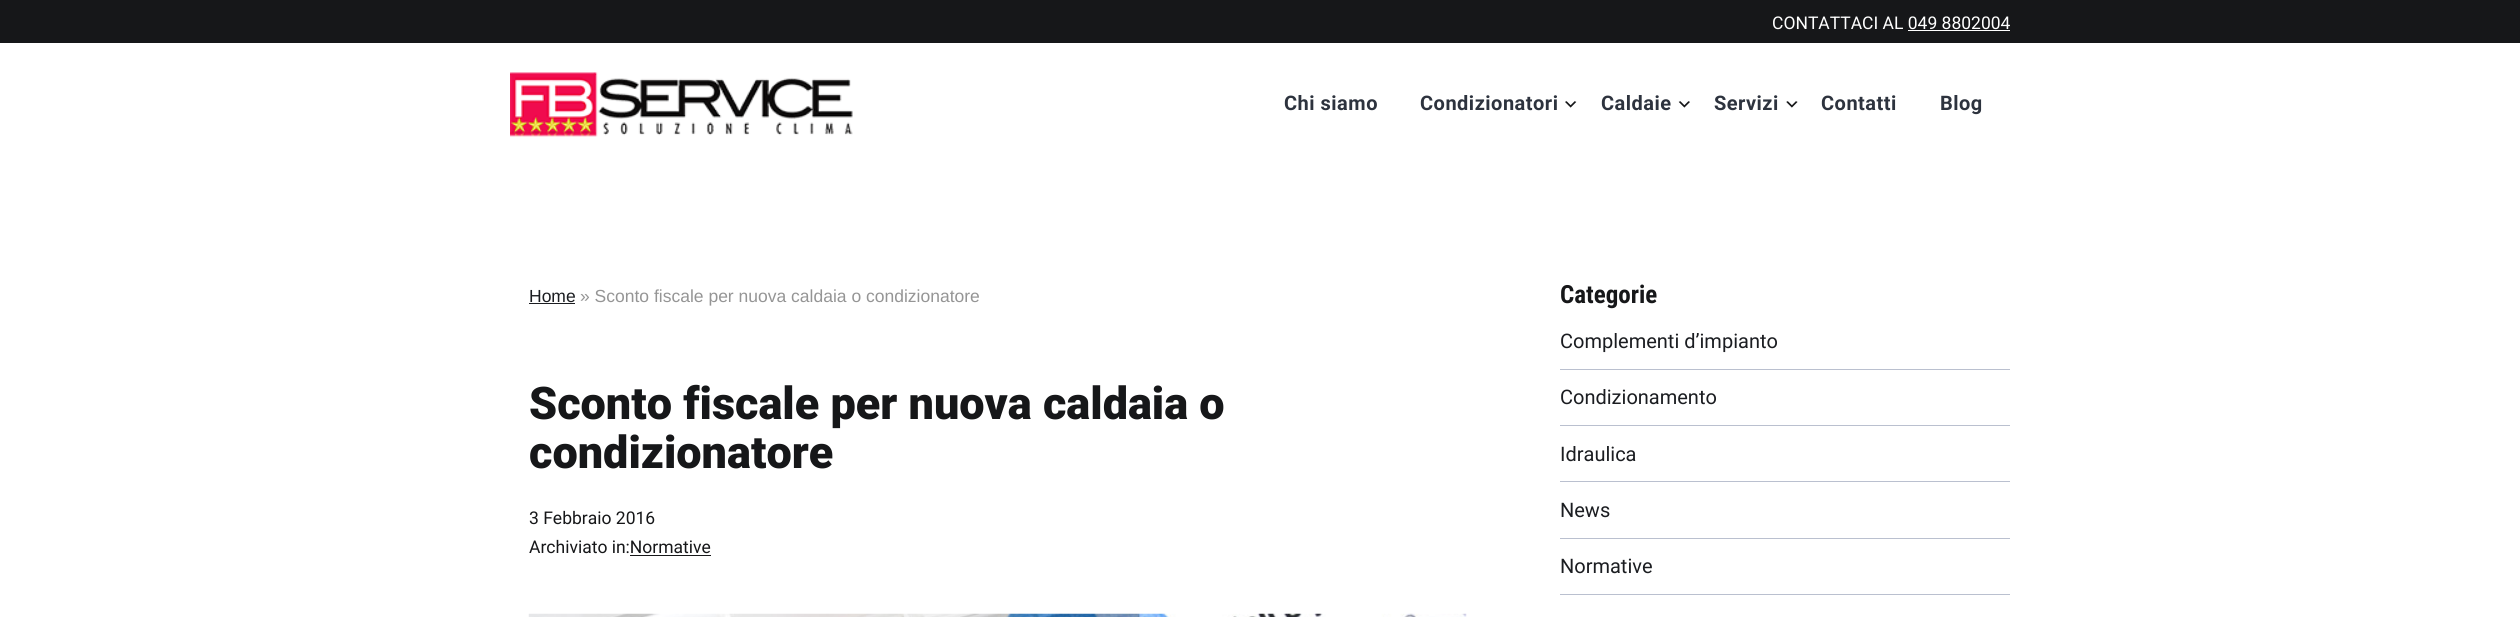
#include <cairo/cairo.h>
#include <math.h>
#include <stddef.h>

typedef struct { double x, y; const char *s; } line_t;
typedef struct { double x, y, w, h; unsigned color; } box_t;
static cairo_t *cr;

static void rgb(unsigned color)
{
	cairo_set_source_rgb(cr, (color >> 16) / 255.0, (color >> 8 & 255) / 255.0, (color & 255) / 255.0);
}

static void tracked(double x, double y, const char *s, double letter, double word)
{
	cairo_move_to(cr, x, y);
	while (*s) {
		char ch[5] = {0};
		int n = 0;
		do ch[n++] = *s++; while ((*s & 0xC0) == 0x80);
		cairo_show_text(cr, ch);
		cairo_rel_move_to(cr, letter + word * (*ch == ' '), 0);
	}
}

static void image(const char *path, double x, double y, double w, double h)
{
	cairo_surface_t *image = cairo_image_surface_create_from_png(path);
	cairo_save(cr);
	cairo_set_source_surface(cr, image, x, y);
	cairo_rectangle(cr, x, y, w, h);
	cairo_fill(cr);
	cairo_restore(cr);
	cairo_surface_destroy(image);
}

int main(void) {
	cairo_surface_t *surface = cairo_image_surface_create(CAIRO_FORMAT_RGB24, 2520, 617);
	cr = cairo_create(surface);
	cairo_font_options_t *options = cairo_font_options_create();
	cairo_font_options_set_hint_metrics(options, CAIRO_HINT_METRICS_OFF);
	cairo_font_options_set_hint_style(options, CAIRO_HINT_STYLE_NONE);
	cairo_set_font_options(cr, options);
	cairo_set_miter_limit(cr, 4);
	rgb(0xffffff);
	cairo_paint(cr);
	rgb(0x161719);
	cairo_rectangle(cr, 0, 0, 2520, 43);
	cairo_fill(cr);
	rgb(0xffffff);
	cairo_rectangle(cr, 1908, 30, 102, 1);
	cairo_fill(cr);
	image("img/1.png", 510, 72, 343, 65);
	image("img/2.png", 1565, 101, 12, 7);
	image("img/3.png", 1678, 101, 12, 7);
	image("img/4.png", 1786, 101, 12, 7);
	rgb(0x1b1d21);
	cairo_rectangle(cr, 529, 303, 46, 1);
	cairo_fill(cr);
	rgb(0x161719);
	cairo_rectangle(cr, 630, 555, 81, 1);
	cairo_fill(cr);
	image("img/5.png", 528, 613, 939, 4);
	{
		static const box_t items[] = {
			{1560, 369, 450, 1, 0xbac0cf},
			{1560, 425, 450, 1, 0xbac0cf},
			{1560, 481, 450, 1, 0xbac0cf},
			{1560, 538, 450, 1, 0xbac0cf},
			{1560, 594, 450, 1, 0xbac0cf},
		};
		for (size_t i = 0; i < sizeof items / sizeof *items; i++) {
			rgb(items[i].color);
			cairo_rectangle(cr, items[i].x, items[i].y, items[i].w, items[i].h);
			cairo_fill(cr);
		}
	}
	cairo_select_font_face(cr, "Roboto", CAIRO_FONT_SLANT_NORMAL, CAIRO_FONT_WEIGHT_NORMAL);
	cairo_set_font_size(cr, 17.5);
	rgb(0xffffff);
	cairo_move_to(cr, 1772, 29);
	cairo_show_text(cr, "CONTATTACI AL 049 8802004");
	cairo_select_font_face(cr, "Roboto", CAIRO_FONT_SLANT_NORMAL, CAIRO_FONT_WEIGHT_BOLD);
	cairo_set_font_size(cr, 20);
	rgb(0x2d333e);
	{
		static const line_t items[] = {
			{1284, 110, "Chi siamo"},
			{1420, 110, "Condizionatori"},
			{1601, 110, "Caldaie"},
			{1714, 110, "Servizi"},
			{1821, 110, "Contatti"},
			{1940, 110, "Blog"},
		};
		for (size_t i = 0; i < sizeof items / sizeof *items; i++) {
			tracked(items[i].x, items[i].y, items[i].s, 0.5, 0);
		}
	}
	cairo_select_font_face(cr, "Liberation Sans", CAIRO_FONT_SLANT_NORMAL, CAIRO_FONT_WEIGHT_NORMAL);
	cairo_set_font_size(cr, 17.5);
	rgb(0x1b1d21);
	cairo_move_to(cr, 529, 302);
	cairo_show_text(cr, "Home");
	rgb(0x959595);
	cairo_move_to(cr, 580, 302);
	cairo_show_text(cr, "» Sconto fiscale per nuova caldaia o condizionatore");
	cairo_select_font_face(cr, "Roboto Black", CAIRO_FONT_SLANT_NORMAL, CAIRO_FONT_WEIGHT_NORMAL);
	cairo_set_font_size(cr, 45);
	rgb(0x161719);
	cairo_move_to(cr, 529, 419);
	cairo_show_text(cr, "Sconto fiscale per nuova caldaia o");
	cairo_move_to(cr, 529, 468);
	cairo_show_text(cr, "condizionatore");
	cairo_select_font_face(cr, "Roboto", CAIRO_FONT_SLANT_NORMAL, CAIRO_FONT_WEIGHT_NORMAL);
	cairo_set_font_size(cr, 17.5);
	cairo_move_to(cr, 529, 524);
	cairo_show_text(cr, "3 Febbraio 2016");
	cairo_move_to(cr, 529, 553);
	cairo_show_text(cr, "Archiviato in:Normative");
	cairo_select_font_face(cr, "Roboto Condensed", CAIRO_FONT_SLANT_NORMAL, CAIRO_FONT_WEIGHT_BOLD);
	cairo_set_font_size(cr, 25);
	cairo_move_to(cr, 1560, 303);
	cairo_show_text(cr, "Categorie");
	cairo_select_font_face(cr, "Roboto", CAIRO_FONT_SLANT_NORMAL, CAIRO_FONT_WEIGHT_NORMAL);
	cairo_set_font_size(cr, 20);
	rgb(0x1b1d21);
	{
		static const line_t items[] = {
			{1560, 348, "Complementi d’impianto"},
			{1560, 404, "Condizionamento"},
			{1560, 461, "Idraulica"},
			{1560, 517, "News"},
			{1560, 573, "Normative"},
		};
		for (size_t i = 0; i < sizeof items / sizeof *items; i++) {
			cairo_move_to(cr, items[i].x, items[i].y);
			cairo_show_text(cr, items[i].s);
		}
	}
	cairo_surface_write_to_png(surface, "page.png");
	cairo_font_options_destroy(options);
	cairo_destroy(cr);
	cairo_surface_destroy(surface);
	return 0;
}
